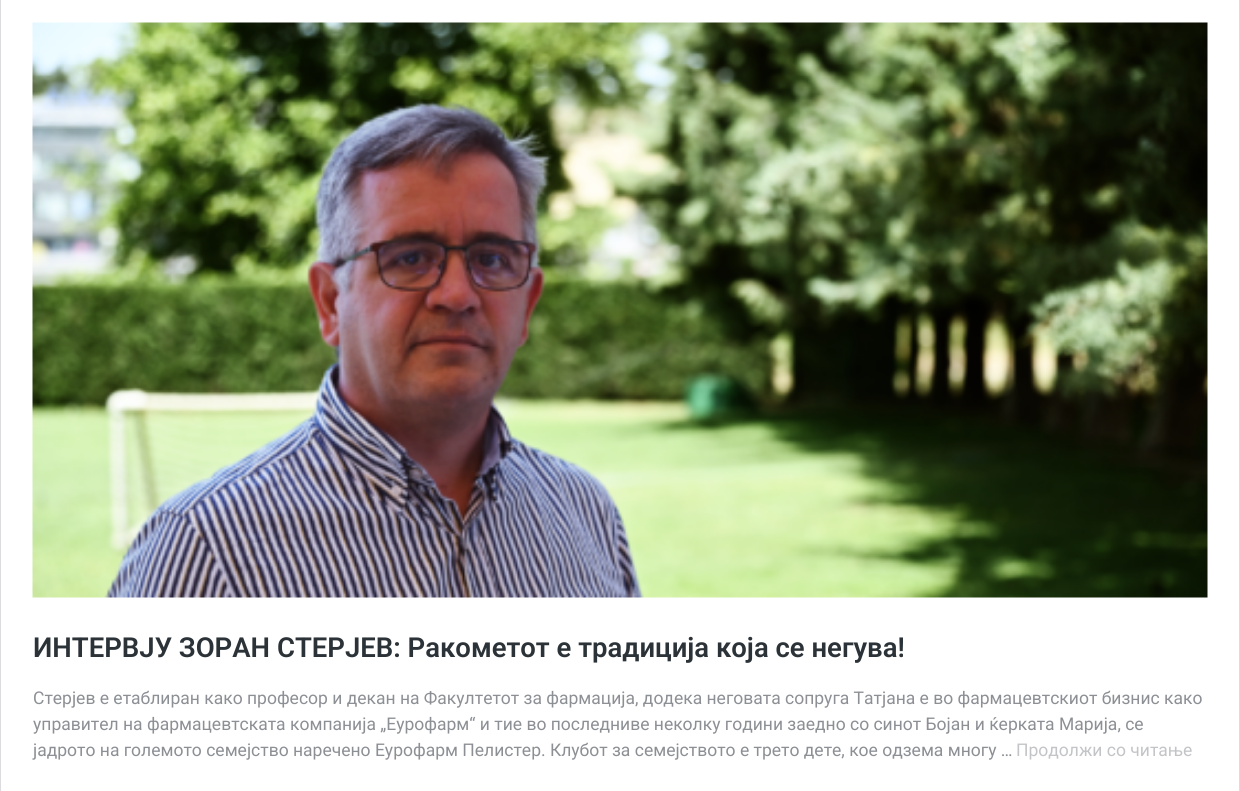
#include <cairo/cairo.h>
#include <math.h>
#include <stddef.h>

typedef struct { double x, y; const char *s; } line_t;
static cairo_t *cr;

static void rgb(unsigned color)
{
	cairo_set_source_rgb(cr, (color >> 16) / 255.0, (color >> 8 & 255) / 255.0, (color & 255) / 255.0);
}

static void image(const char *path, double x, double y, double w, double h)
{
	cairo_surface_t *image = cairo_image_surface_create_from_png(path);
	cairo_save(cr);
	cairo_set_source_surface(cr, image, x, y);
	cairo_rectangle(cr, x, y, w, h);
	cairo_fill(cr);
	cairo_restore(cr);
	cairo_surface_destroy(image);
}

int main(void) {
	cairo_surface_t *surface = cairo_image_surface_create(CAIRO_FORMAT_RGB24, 1240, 791);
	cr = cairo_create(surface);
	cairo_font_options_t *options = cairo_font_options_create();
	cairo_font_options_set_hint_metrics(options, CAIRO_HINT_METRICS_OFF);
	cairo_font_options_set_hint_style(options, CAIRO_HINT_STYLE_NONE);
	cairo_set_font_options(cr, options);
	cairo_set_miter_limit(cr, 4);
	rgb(0xffffff);
	cairo_paint(cr);
	cairo_rectangle(cr, 0.5, -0.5, 1239, 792);
	rgb(0xdcdcde);
	cairo_set_line_width(cr, 1);
	cairo_stroke(cr);
	image("img/1.png", 32, 22, 1176, 576);
	cairo_select_font_face(cr, "Roboto SemiBold", CAIRO_FONT_SLANT_NORMAL, CAIRO_FONT_WEIGHT_NORMAL);
	cairo_set_font_size(cr, 27.5);
	rgb(0x2c3338);
	cairo_move_to(cr, 33, 657);
	cairo_show_text(cr, "ИНТЕРВЈУ ЗОРАН СТЕРЈЕВ: Ракометот е традиција која се негува!");
	cairo_select_font_face(cr, "Roboto", CAIRO_FONT_SLANT_NORMAL, CAIRO_FONT_WEIGHT_NORMAL);
	cairo_set_font_size(cr, 17.5);
	rgb(0x8c8f94);
	{
		static const line_t items[] = {
			{33, 704, "Стерјев е етаблиран како професор и декан на Факултетот за фармација, додека неговата сопруга Татјана е во фармацевтскиот бизнис како"},
			{33, 730, "управител на фармацевтската компанија „Еурофарм“ и тие во последниве неколку години заедно со синот Бојан и ќерката Марија, се"},
			{33, 756, "јадрото на големото семејство наречено Еурофарм Пелистер. Клубот за семејството е трето дете, кое одзема многу …"},
		};
		for (size_t i = 0; i < sizeof items / sizeof *items; i++) {
			cairo_move_to(cr, items[i].x, items[i].y);
			cairo_show_text(cr, items[i].s);
		}
	}
	rgb(0xc3c4c7);
	cairo_move_to(cr, 1016, 756);
	cairo_show_text(cr, "Продолжи со читање");
	cairo_surface_write_to_png(surface, "page.png");
	cairo_font_options_destroy(options);
	cairo_destroy(cr);
	cairo_surface_destroy(surface);
	return 0;
}
